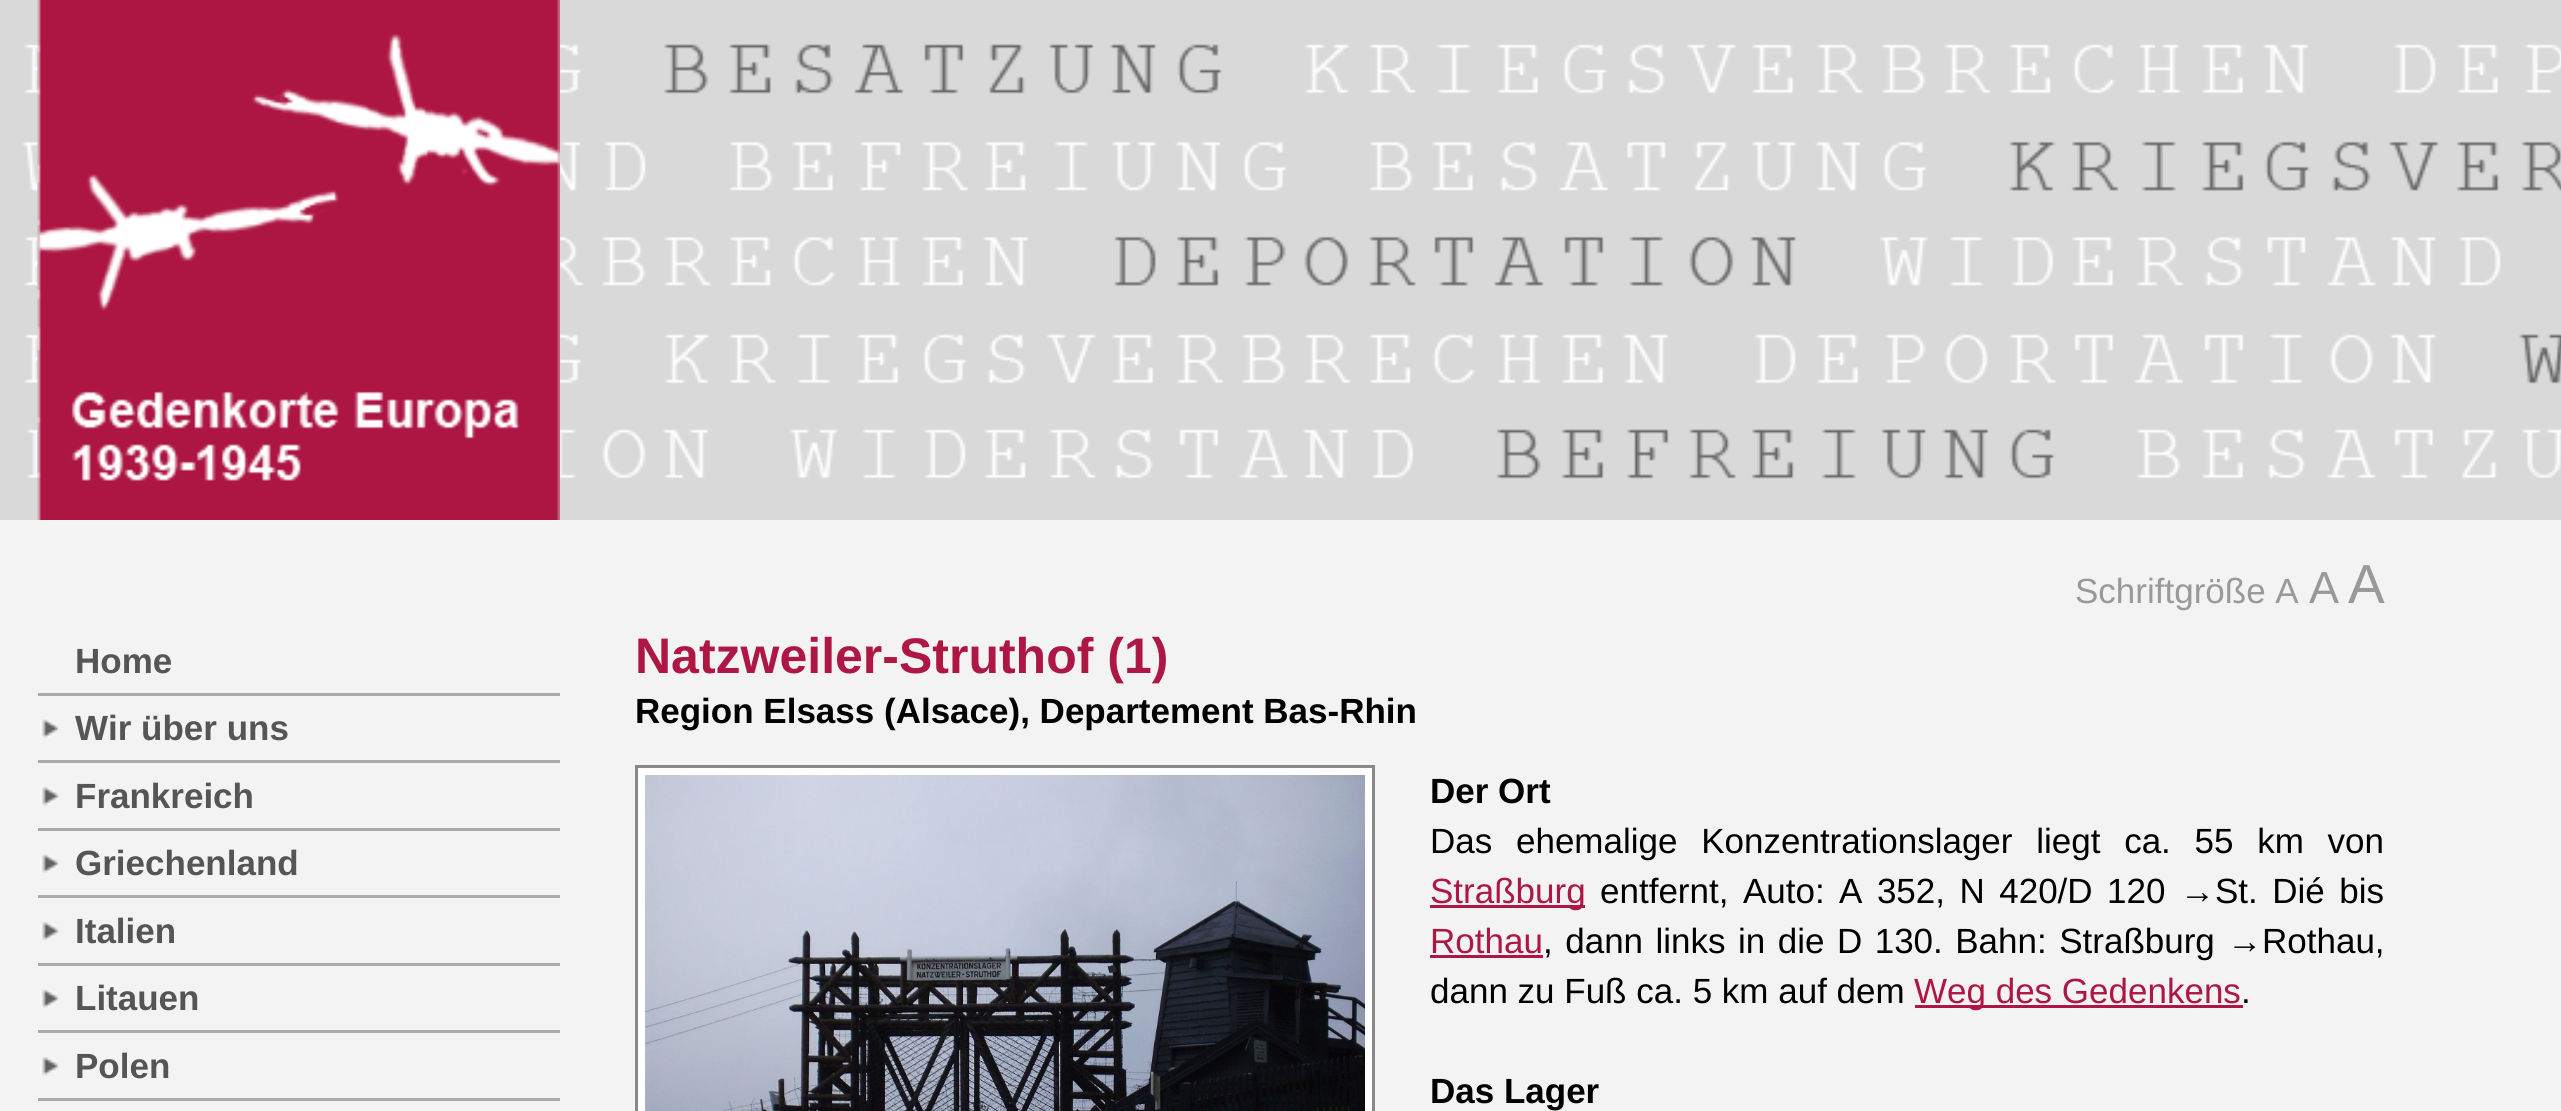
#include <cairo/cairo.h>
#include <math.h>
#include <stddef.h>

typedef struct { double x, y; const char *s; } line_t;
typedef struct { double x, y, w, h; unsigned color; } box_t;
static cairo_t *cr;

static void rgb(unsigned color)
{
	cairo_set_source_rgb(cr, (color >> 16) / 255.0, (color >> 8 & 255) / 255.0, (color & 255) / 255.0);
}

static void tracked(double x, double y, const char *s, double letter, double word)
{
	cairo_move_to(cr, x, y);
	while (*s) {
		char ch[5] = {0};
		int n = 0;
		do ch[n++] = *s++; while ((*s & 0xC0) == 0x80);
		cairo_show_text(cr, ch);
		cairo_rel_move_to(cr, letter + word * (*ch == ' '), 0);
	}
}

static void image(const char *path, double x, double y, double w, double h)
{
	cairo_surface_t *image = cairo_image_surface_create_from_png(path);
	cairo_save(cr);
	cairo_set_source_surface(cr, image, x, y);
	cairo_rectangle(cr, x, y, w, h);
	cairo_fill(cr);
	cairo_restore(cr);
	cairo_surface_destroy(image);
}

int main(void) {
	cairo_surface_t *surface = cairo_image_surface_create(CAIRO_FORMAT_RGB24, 2561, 1111);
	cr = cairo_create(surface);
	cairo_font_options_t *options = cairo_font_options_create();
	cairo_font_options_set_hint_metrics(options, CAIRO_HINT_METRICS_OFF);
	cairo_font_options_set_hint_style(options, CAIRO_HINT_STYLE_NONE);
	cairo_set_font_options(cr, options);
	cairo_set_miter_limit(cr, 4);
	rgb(0xf3f3f3);
	cairo_paint(cr);
	image("img/1.png", 0, 0, 2561, 520);
	image("img/2.png", 37, 0, 523, 520);
	rgb(0xaaaaaa);
	cairo_rectangle(cr, 38, 693, 522, 3);
	cairo_fill(cr);
	image("img/3.png", 40, 718, 19, 20);
	cairo_rectangle(cr, 38, 760, 522, 3);
	cairo_fill(cr);
	image("img/4.png", 40, 787, 19, 19);
	cairo_rectangle(cr, 38, 828, 522, 3);
	cairo_fill(cr);
	image("img/3.png", 40, 853, 19, 20);
	cairo_rectangle(cr, 38, 895, 522, 3);
	cairo_fill(cr);
	image("img/5.png", 40, 922, 19, 19);
	cairo_rectangle(cr, 38, 963, 522, 3);
	cairo_fill(cr);
	image("img/3.png", 40, 988, 19, 20);
	cairo_rectangle(cr, 38, 1030, 522, 3);
	cairo_fill(cr);
	image("img/5.png", 40, 1057, 19, 19);
	cairo_rectangle(cr, 38, 1098, 522, 3);
	cairo_fill(cr);
	rgb(0xffffff);
	cairo_rectangle(cr, 636.5, 766.5, 737, 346);
	cairo_fill_preserve(cr);
	rgb(0x888888);
	cairo_set_line_width(cr, 3);
	cairo_stroke(cr);
	image("img/6.png", 645, 775, 720, 336);
	{
		static const box_t items[] = {
			{1430, 905, 155, 3, 0xae1744},
			{1430, 955, 113, 3, 0xae1744},
			{1915, 1005, 328, 3, 0xae1744},
		};
		for (size_t i = 0; i < sizeof items / sizeof *items; i++) {
			rgb(items[i].color);
			cairo_rectangle(cr, items[i].x, items[i].y, items[i].w, items[i].h);
			cairo_fill(cr);
		}
	}
	cairo_select_font_face(cr, "Liberation Sans", CAIRO_FONT_SLANT_NORMAL, CAIRO_FONT_WEIGHT_BOLD);
	cairo_set_font_size(cr, 35);
	rgb(0x555555);
	{
		static const line_t items[] = {
			{75, 673, "Home"},
			{75, 740, "Wir über uns"},
			{75, 808, "Frankreich"},
			{75, 875, "Griechenland"},
			{75, 943, "Italien"},
			{75, 1010, "Litauen"},
			{75, 1078, "Polen"},
		};
		for (size_t i = 0; i < sizeof items / sizeof *items; i++) {
			cairo_move_to(cr, items[i].x, items[i].y);
			cairo_show_text(cr, items[i].s);
		}
	}
	cairo_select_font_face(cr, "Liberation Sans", CAIRO_FONT_SLANT_NORMAL, CAIRO_FONT_WEIGHT_NORMAL);
	rgb(0x999999);
	cairo_move_to(cr, 2075, 603);
	cairo_show_text(cr, "Schriftgröße A");
	cairo_set_font_size(cr, 45);
	cairo_move_to(cr, 2309, 603);
	cairo_show_text(cr, "A");
	cairo_set_font_size(cr, 55);
	cairo_move_to(cr, 2348, 603);
	cairo_show_text(cr, "A");
	cairo_select_font_face(cr, "Liberation Sans", CAIRO_FONT_SLANT_NORMAL, CAIRO_FONT_WEIGHT_BOLD);
	cairo_set_font_size(cr, 50);
	rgb(0xae1744);
	cairo_move_to(cr, 635, 673);
	cairo_show_text(cr, "Natzweiler-Struthof (1)");
	cairo_set_font_size(cr, 35);
	rgb(0x000000);
	cairo_move_to(cr, 635, 723);
	cairo_show_text(cr, "Region Elsass (Alsace), Departement Bas-Rhin");
	cairo_move_to(cr, 1430, 803);
	cairo_show_text(cr, "Der Ort");
	cairo_select_font_face(cr, "Liberation Sans", CAIRO_FONT_SLANT_NORMAL, CAIRO_FONT_WEIGHT_NORMAL);
	tracked(1430, 853, "Das ehemalige Konzentrationslager liegt ca. 55 km von", 0, 14);
	rgb(0xae1744);
	cairo_move_to(cr, 1430, 903);
	cairo_show_text(cr, "Straßburg");
	rgb(0x000000);
	tracked(1600, 903, "entfernt, Auto: A 352, N 420/D 120 →St. Dié bis", 0, 4.75);
	rgb(0xae1744);
	cairo_move_to(cr, 1430, 953);
	cairo_show_text(cr, "Rothau");
	rgb(0x000000);
	tracked(1543, 953, ", dann links in die D 130. Bahn: Straßburg →", 0, 2.75);
	cairo_move_to(cr, 2262, 953);
	cairo_show_text(cr, "Rothau,");
	cairo_move_to(cr, 1430, 1003);
	cairo_show_text(cr, "dann zu Fuß ca. 5 km auf dem");
	rgb(0xae1744);
	cairo_move_to(cr, 1914, 1003);
	cairo_show_text(cr, "Weg des Gedenkens");
	rgb(0x000000);
	cairo_move_to(cr, 2241, 1003);
	cairo_show_text(cr, ".");
	cairo_select_font_face(cr, "Liberation Sans", CAIRO_FONT_SLANT_NORMAL, CAIRO_FONT_WEIGHT_BOLD);
	cairo_move_to(cr, 1430, 1103);
	cairo_show_text(cr, "Das Lager");
	cairo_surface_write_to_png(surface, "page.png");
	cairo_font_options_destroy(options);
	cairo_destroy(cr);
	cairo_surface_destroy(surface);
	return 0;
}
